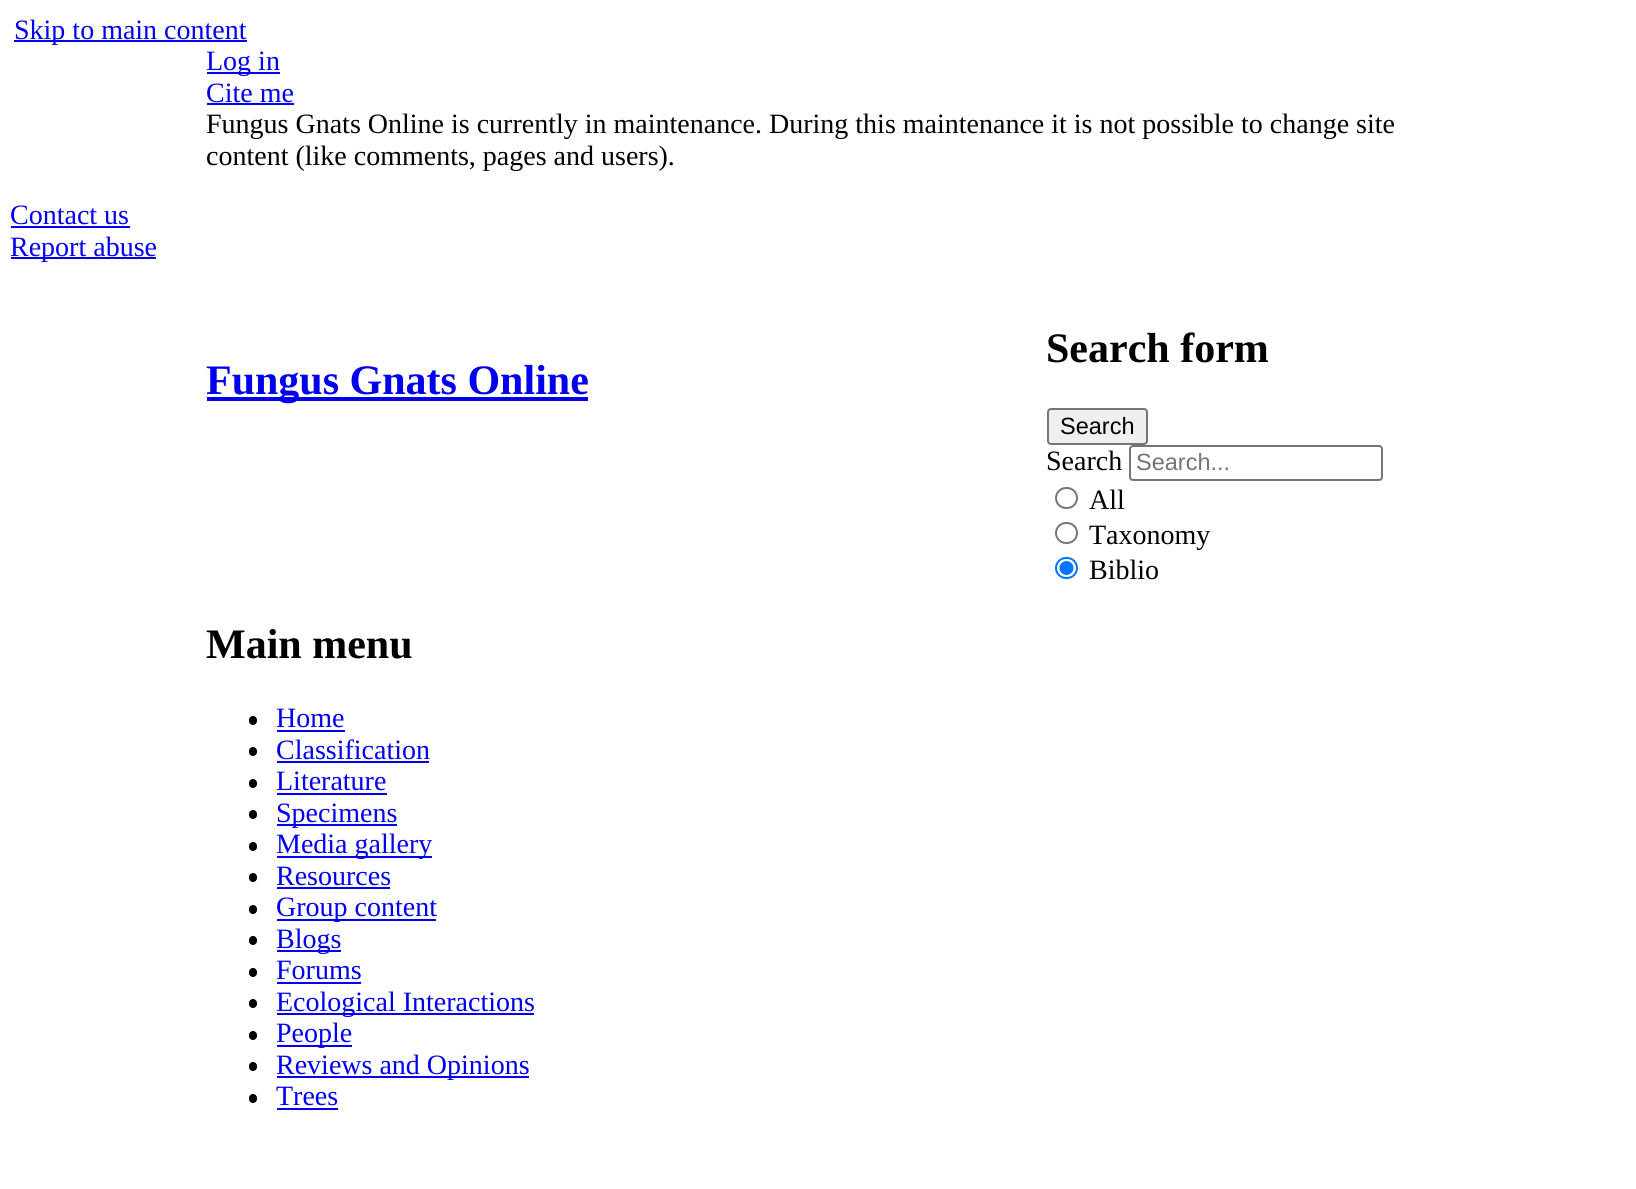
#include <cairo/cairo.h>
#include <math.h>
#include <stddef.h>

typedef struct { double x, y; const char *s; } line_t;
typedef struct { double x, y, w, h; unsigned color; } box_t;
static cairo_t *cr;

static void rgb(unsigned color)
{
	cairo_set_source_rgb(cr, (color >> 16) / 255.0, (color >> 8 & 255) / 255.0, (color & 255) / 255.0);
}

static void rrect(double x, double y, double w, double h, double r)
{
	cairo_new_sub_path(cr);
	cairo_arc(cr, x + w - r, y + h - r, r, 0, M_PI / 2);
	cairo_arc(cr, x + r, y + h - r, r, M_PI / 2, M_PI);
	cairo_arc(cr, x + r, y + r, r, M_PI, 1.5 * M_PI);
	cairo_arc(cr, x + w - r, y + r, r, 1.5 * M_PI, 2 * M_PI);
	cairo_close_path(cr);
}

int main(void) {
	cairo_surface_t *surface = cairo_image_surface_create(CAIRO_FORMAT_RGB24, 1636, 1189);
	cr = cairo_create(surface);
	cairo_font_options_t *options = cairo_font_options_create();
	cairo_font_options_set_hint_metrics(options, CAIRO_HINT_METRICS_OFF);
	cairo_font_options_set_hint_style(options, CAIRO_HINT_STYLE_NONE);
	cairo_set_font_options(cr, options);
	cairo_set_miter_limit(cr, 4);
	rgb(0xffffff);
	cairo_paint(cr);
	{
		static const box_t items[] = {
			{14, 40, 233, 2, 0x0000ee},
			{207, 72, 73, 2, 0x0000ee},
			{207, 103, 87, 2, 0x0000ee},
			{11, 226, 119, 2, 0x0000ee},
			{11, 257, 145, 2, 0x0000ee},
			{207, 397, 381, 4, 0x0000ee},
		};
		for (size_t i = 0; i < sizeof items / sizeof *items; i++) {
			rgb(items[i].color);
			cairo_rectangle(cr, items[i].x, items[i].y, items[i].w, items[i].h);
			cairo_fill(cr);
		}
	}
	rgb(0xefefef);
	rrect(1048, 409, 99, 35, 3);
	cairo_fill_preserve(cr);
	rgb(0x767676);
	cairo_stroke(cr);
	rrect(1130, 446, 252, 34, 3);
	cairo_stroke(cr);
	rrect(1056, 488, 21, 20, 10);
	cairo_stroke(cr);
	rrect(1056, 523, 21, 20, 10);
	cairo_stroke(cr);
	rrect(1056, 558, 21, 20, 10);
	rgb(0x0075ff);
	cairo_stroke(cr);
	cairo_arc(cr, 1066.5, 568, 7, 0, 2 * M_PI);
	cairo_fill(cr);
	rgb(0x000000);
	rrect(249, 716, 8, 9, 4);
	cairo_fill(cr);
	rgb(0x0000ee);
	cairo_rectangle(cr, 277, 730, 68, 2);
	cairo_fill(cr);
	rgb(0x000000);
	rrect(249, 747, 8, 9, 4);
	cairo_fill(cr);
	rgb(0x0000ee);
	cairo_rectangle(cr, 277, 761, 152, 2);
	cairo_fill(cr);
	rgb(0x000000);
	rrect(249, 779, 8, 9, 4);
	cairo_fill(cr);
	rgb(0x0000ee);
	cairo_rectangle(cr, 277, 793, 110, 2);
	cairo_fill(cr);
	rgb(0x000000);
	rrect(249, 810, 8, 9, 4);
	cairo_fill(cr);
	rgb(0x0000ee);
	cairo_rectangle(cr, 277, 824, 120, 2);
	cairo_fill(cr);
	rgb(0x000000);
	rrect(249, 842, 8, 9, 4);
	cairo_fill(cr);
	rgb(0x0000ee);
	cairo_rectangle(cr, 277, 856, 155, 2);
	cairo_fill(cr);
	rgb(0x000000);
	rrect(249, 873, 8, 9, 4);
	cairo_fill(cr);
	rgb(0x0000ee);
	cairo_rectangle(cr, 277, 887, 113, 2);
	cairo_fill(cr);
	rgb(0x000000);
	rrect(249, 905, 8, 9, 4);
	cairo_fill(cr);
	rgb(0x0000ee);
	cairo_rectangle(cr, 277, 919, 159, 2);
	cairo_fill(cr);
	rgb(0x000000);
	rrect(249, 936, 8, 9, 4);
	cairo_fill(cr);
	rgb(0x0000ee);
	cairo_rectangle(cr, 277, 950, 64, 2);
	cairo_fill(cr);
	rgb(0x000000);
	rrect(249, 968, 8, 9, 4);
	cairo_fill(cr);
	rgb(0x0000ee);
	cairo_rectangle(cr, 277, 982, 84, 2);
	cairo_fill(cr);
	rgb(0x000000);
	rrect(249, 999, 8, 9, 4);
	cairo_fill(cr);
	rgb(0x0000ee);
	cairo_rectangle(cr, 277, 1013, 257, 2);
	cairo_fill(cr);
	rgb(0x000000);
	rrect(249, 1031, 8, 9, 4);
	cairo_fill(cr);
	rgb(0x0000ee);
	cairo_rectangle(cr, 277, 1045, 75, 2);
	cairo_fill(cr);
	rgb(0x000000);
	rrect(249, 1062, 8, 9, 4);
	cairo_fill(cr);
	rgb(0x0000ee);
	cairo_rectangle(cr, 277, 1076, 252, 2);
	cairo_fill(cr);
	rgb(0x000000);
	rrect(249, 1094, 8, 9, 4);
	cairo_fill(cr);
	rgb(0x0000ee);
	cairo_rectangle(cr, 277, 1108, 61, 2);
	cairo_fill(cr);
	cairo_select_font_face(cr, "Liberation Serif", CAIRO_FONT_SLANT_NORMAL, CAIRO_FONT_WEIGHT_NORMAL);
	cairo_set_font_size(cr, 28);
	{
		static const line_t items[] = {
			{14, 39, "Skip to main content"},
			{206, 70, "Log in"},
			{206, 102, "Cite me"},
		};
		for (size_t i = 0; i < sizeof items / sizeof *items; i++) {
			cairo_move_to(cr, items[i].x, items[i].y);
			cairo_show_text(cr, items[i].s);
		}
	}
	rgb(0x000000);
	cairo_move_to(cr, 206, 133);
	cairo_show_text(cr, "Fungus Gnats Online is currently in maintenance. During this maintenance it is not possible to change site");
	cairo_move_to(cr, 206, 165);
	cairo_show_text(cr, "content (like comments, pages and users).");
	rgb(0x0000ee);
	cairo_move_to(cr, 10, 224);
	cairo_show_text(cr, "Contact us");
	cairo_move_to(cr, 10, 256);
	cairo_show_text(cr, "Report abuse");
	cairo_select_font_face(cr, "Liberation Serif", CAIRO_FONT_SLANT_NORMAL, CAIRO_FONT_WEIGHT_BOLD);
	cairo_set_font_size(cr, 42);
	cairo_move_to(cr, 206, 394);
	cairo_show_text(cr, "Fungus Gnats Online");
	rgb(0x000000);
	cairo_move_to(cr, 1046, 362);
	cairo_show_text(cr, "Search form");
	cairo_select_font_face(cr, "Liberation Sans", CAIRO_FONT_SLANT_NORMAL, CAIRO_FONT_WEIGHT_NORMAL);
	cairo_set_font_size(cr, 23.5);
	cairo_move_to(cr, 1060, 434);
	cairo_show_text(cr, "Search");
	cairo_select_font_face(cr, "Liberation Serif", CAIRO_FONT_SLANT_NORMAL, CAIRO_FONT_WEIGHT_NORMAL);
	cairo_set_font_size(cr, 28);
	cairo_move_to(cr, 1046, 470);
	cairo_show_text(cr, "Search");
	cairo_select_font_face(cr, "Liberation Sans", CAIRO_FONT_SLANT_NORMAL, CAIRO_FONT_WEIGHT_NORMAL);
	cairo_set_font_size(cr, 23.5);
	rgb(0x757575);
	cairo_move_to(cr, 1136, 470);
	cairo_show_text(cr, "Search...");
	cairo_select_font_face(cr, "Liberation Serif", CAIRO_FONT_SLANT_NORMAL, CAIRO_FONT_WEIGHT_NORMAL);
	cairo_set_font_size(cr, 28);
	rgb(0x000000);
	{
		static const line_t items[] = {
			{1089, 509, "All"},
			{1089, 544, "Taxonomy"},
			{1089, 579, "Biblio"},
		};
		for (size_t i = 0; i < sizeof items / sizeof *items; i++) {
			cairo_move_to(cr, items[i].x, items[i].y);
			cairo_show_text(cr, items[i].s);
		}
	}
	cairo_select_font_face(cr, "Liberation Serif", CAIRO_FONT_SLANT_NORMAL, CAIRO_FONT_WEIGHT_BOLD);
	cairo_set_font_size(cr, 42);
	cairo_move_to(cr, 206, 658);
	cairo_show_text(cr, "Main menu");
	cairo_select_font_face(cr, "Liberation Serif", CAIRO_FONT_SLANT_NORMAL, CAIRO_FONT_WEIGHT_NORMAL);
	cairo_set_font_size(cr, 28);
	rgb(0x0000ee);
	{
		static const line_t items[] = {
			{276, 727, "Home"},
			{276, 759, "Classification"},
			{276, 790, "Literature"},
			{276, 822, "Specimens"},
			{276, 853, "Media gallery"},
			{276, 885, "Resources"},
			{276, 916, "Group content"},
			{276, 948, "Blogs"},
			{276, 979, "Forums"},
			{276, 1011, "Ecological Interactions"},
			{276, 1042, "People"},
			{276, 1074, "Reviews and Opinions"},
			{276, 1105, "Trees"},
		};
		for (size_t i = 0; i < sizeof items / sizeof *items; i++) {
			cairo_move_to(cr, items[i].x, items[i].y);
			cairo_show_text(cr, items[i].s);
		}
	}
	cairo_surface_write_to_png(surface, "page.png");
	cairo_font_options_destroy(options);
	cairo_destroy(cr);
	cairo_surface_destroy(surface);
	return 0;
}
